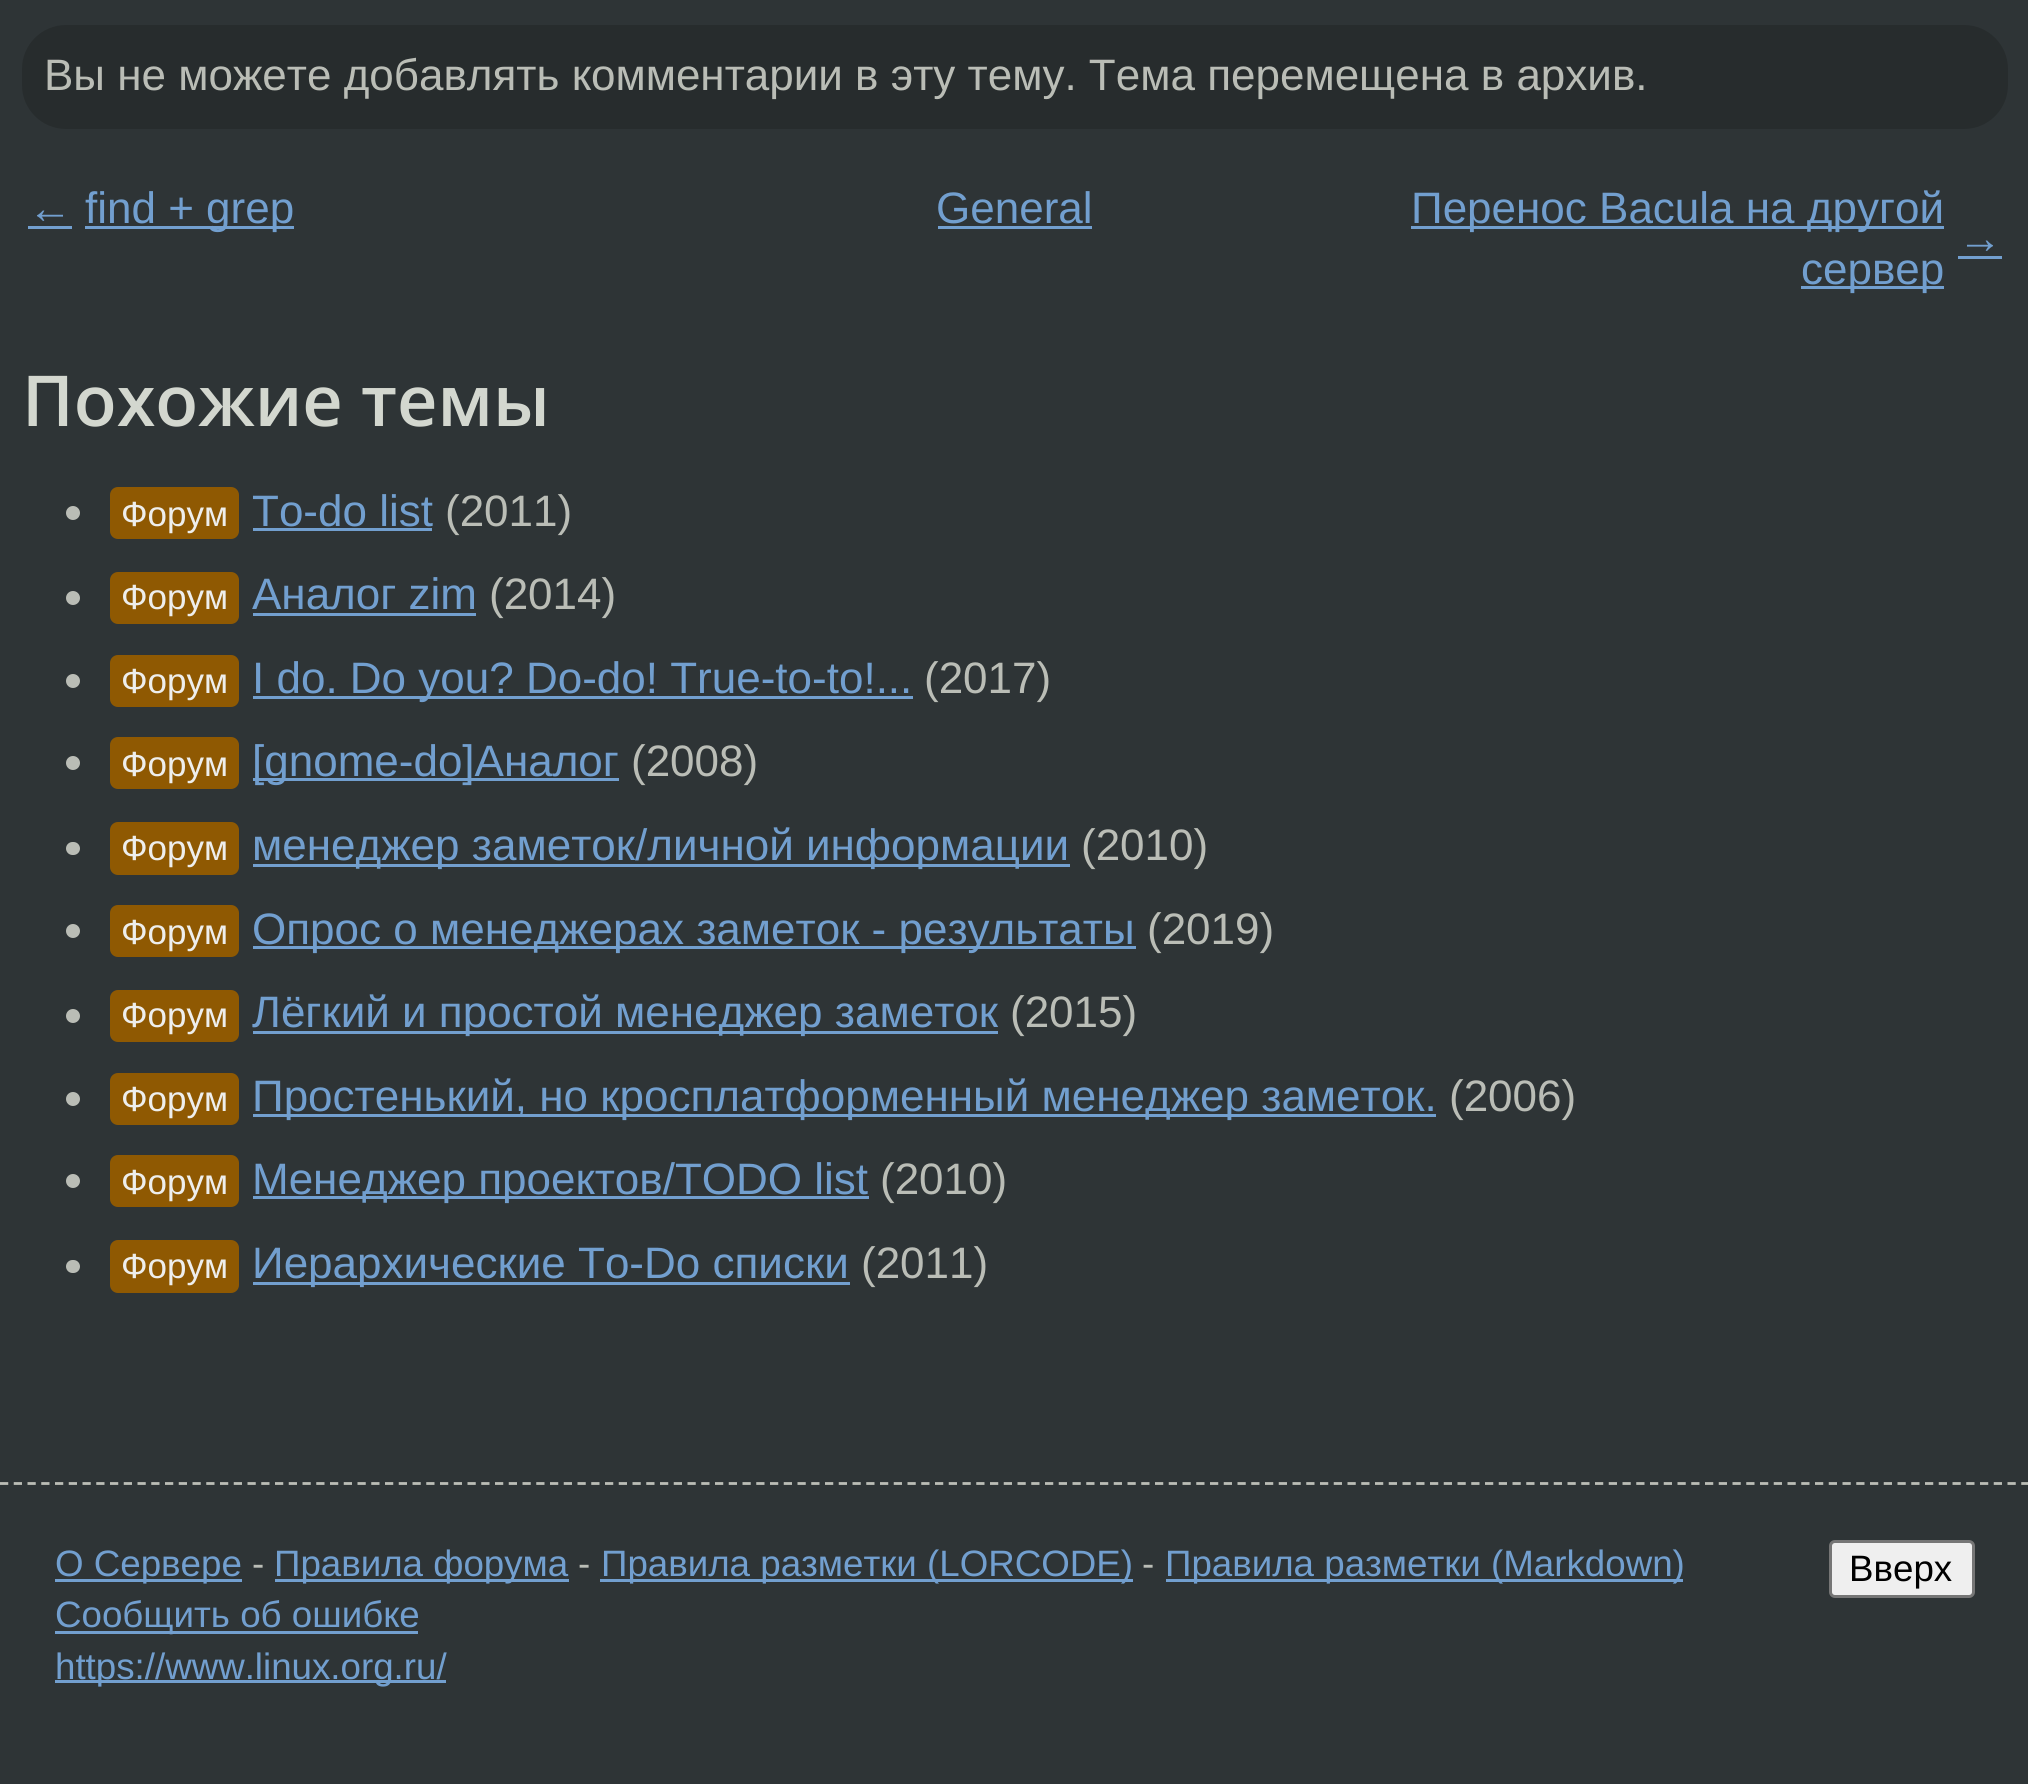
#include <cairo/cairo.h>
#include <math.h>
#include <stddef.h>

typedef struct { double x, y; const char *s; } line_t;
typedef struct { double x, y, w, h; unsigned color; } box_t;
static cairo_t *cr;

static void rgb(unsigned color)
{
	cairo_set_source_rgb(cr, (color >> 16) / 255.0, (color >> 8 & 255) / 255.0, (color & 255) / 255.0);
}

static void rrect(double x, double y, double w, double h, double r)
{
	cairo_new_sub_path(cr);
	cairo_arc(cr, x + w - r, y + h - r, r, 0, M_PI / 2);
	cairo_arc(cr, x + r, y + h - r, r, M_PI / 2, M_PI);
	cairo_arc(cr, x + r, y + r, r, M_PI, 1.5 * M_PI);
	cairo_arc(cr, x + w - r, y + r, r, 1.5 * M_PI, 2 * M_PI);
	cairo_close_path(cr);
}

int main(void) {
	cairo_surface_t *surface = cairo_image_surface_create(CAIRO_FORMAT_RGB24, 2028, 1784);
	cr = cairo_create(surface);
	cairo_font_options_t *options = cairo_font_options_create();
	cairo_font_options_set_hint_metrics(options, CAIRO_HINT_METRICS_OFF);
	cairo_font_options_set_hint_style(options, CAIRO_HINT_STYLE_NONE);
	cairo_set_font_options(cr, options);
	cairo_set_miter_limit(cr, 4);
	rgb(0x2e3436);
	cairo_paint(cr);
	rgb(0x272c2d);
	rrect(22, 25, 1986, 104, 44);
	cairo_fill(cr);
	{
		static const box_t items[] = {
			{28, 226, 44, 3, 0x729fcf},
			{85, 226, 209, 3, 0x729fcf},
			{938, 226, 154, 3, 0x729fcf},
			{1411, 226, 533, 3, 0x729fcf},
			{1801, 286, 143, 3, 0x729fcf},
			{1958, 256, 44, 3, 0x729fcf},
		};
		for (size_t i = 0; i < sizeof items / sizeof *items; i++) {
			rgb(items[i].color);
			cairo_rectangle(cr, items[i].x, items[i].y, items[i].w, items[i].h);
			cairo_fill(cr);
		}
	}
	rgb(0xbabdb6);
	cairo_arc(cr, 73, 513, 7, 0, 2 * M_PI);
	cairo_fill(cr);
	rgb(0x8f5902);
	rrect(110, 487, 129, 52, 8);
	cairo_fill(cr);
	rgb(0x729fcf);
	cairo_rectangle(cr, 253, 528, 179, 3);
	cairo_fill(cr);
	rgb(0xbabdb6);
	cairo_arc(cr, 73, 598, 7, 0, 2 * M_PI);
	cairo_fill(cr);
	rgb(0x8f5902);
	rrect(110, 572, 129, 52, 8);
	cairo_fill(cr);
	rgb(0x729fcf);
	cairo_rectangle(cr, 253, 613, 223, 3);
	cairo_fill(cr);
	rgb(0xbabdb6);
	cairo_arc(cr, 73, 681, 7, 0, 2 * M_PI);
	cairo_fill(cr);
	rgb(0x8f5902);
	rrect(110, 655, 129, 52, 8);
	cairo_fill(cr);
	rgb(0x729fcf);
	cairo_rectangle(cr, 253, 696, 660, 3);
	cairo_fill(cr);
	rgb(0xbabdb6);
	cairo_arc(cr, 73, 763, 7, 0, 2 * M_PI);
	cairo_fill(cr);
	rgb(0x8f5902);
	rrect(110, 737, 129, 52, 8);
	cairo_fill(cr);
	rgb(0x729fcf);
	cairo_rectangle(cr, 253, 778, 366, 3);
	cairo_fill(cr);
	rgb(0xbabdb6);
	rrect(66, 842, 14, 13, 6.5);
	cairo_fill(cr);
	rgb(0x8f5902);
	rrect(110, 822, 129, 53, 8);
	cairo_fill(cr);
	rgb(0x729fcf);
	cairo_rectangle(cr, 253, 864, 817, 3);
	cairo_fill(cr);
	rgb(0xbabdb6);
	cairo_arc(cr, 73, 931, 7, 0, 2 * M_PI);
	cairo_fill(cr);
	rgb(0x8f5902);
	rrect(110, 905, 129, 52, 8);
	cairo_fill(cr);
	rgb(0x729fcf);
	cairo_rectangle(cr, 253, 946, 883, 3);
	cairo_fill(cr);
	rgb(0xbabdb6);
	cairo_arc(cr, 73, 1016, 7, 0, 2 * M_PI);
	cairo_fill(cr);
	rgb(0x8f5902);
	rrect(110, 990, 129, 52, 8);
	cairo_fill(cr);
	rgb(0x729fcf);
	cairo_rectangle(cr, 253, 1031, 745, 3);
	cairo_fill(cr);
	rgb(0xbabdb6);
	cairo_arc(cr, 73, 1099, 7, 0, 2 * M_PI);
	cairo_fill(cr);
	rgb(0x8f5902);
	rrect(110, 1073, 129, 52, 8);
	cairo_fill(cr);
	rgb(0x729fcf);
	cairo_rectangle(cr, 253, 1114, 1183, 3);
	cairo_fill(cr);
	rgb(0xbabdb6);
	cairo_arc(cr, 73, 1181, 7, 0, 2 * M_PI);
	cairo_fill(cr);
	rgb(0x8f5902);
	rrect(110, 1155, 129, 52, 8);
	cairo_fill(cr);
	rgb(0x729fcf);
	cairo_rectangle(cr, 253, 1196, 616, 3);
	cairo_fill(cr);
	rgb(0xbabdb6);
	rrect(66, 1260, 14, 13, 6.5);
	cairo_fill(cr);
	rgb(0x8f5902);
	rrect(110, 1240, 129, 53, 8);
	cairo_fill(cr);
	rgb(0x729fcf);
	cairo_rectangle(cr, 253, 1282, 597, 3);
	cairo_fill(cr);
	cairo_new_path(cr);
	cairo_move_to(cr, 0, 1483.5);
	cairo_line_to(cr, 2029.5, 1483.5);
	rgb(0xbabdb6);
	cairo_set_line_width(cr, 2.8);
	cairo_set_dash(cr, (double[]){8.25, 5.5}, 2, 0);
	cairo_stroke(cr);
	{
		static const box_t items[] = {
			{55, 1579, 187, 3, 0x729fcf},
			{275, 1579, 294, 3, 0x729fcf},
			{600, 1579, 533, 3, 0x729fcf},
			{1166, 1579, 517, 3, 0x729fcf},
			{55, 1631, 363, 3, 0x729fcf},
			{55, 1680, 391, 3, 0x729fcf},
		};
		for (size_t i = 0; i < sizeof items / sizeof *items; i++) {
			rgb(items[i].color);
			cairo_rectangle(cr, items[i].x, items[i].y, items[i].w, items[i].h);
			cairo_fill(cr);
		}
	}
	rgb(0xefefef);
	rrect(1830.5, 1541.5, 143, 55, 4.5);
	cairo_fill_preserve(cr);
	rgb(0x767676);
	cairo_set_line_width(cr, 3);
	cairo_set_dash(cr, NULL, 0, 0);
	cairo_stroke(cr);
	cairo_select_font_face(cr, "Liberation Sans", CAIRO_FONT_SLANT_NORMAL, CAIRO_FONT_WEIGHT_NORMAL);
	cairo_set_font_size(cr, 44);
	rgb(0xbabdb6);
	cairo_move_to(cr, 44, 90);
	cairo_show_text(cr, "Вы не можете добавлять комментарии в эту тему. Тема перемещена в архив.");
	rgb(0x729fcf);
	{
		static const line_t items[] = {
			{28, 223, "←"},
			{85, 223, "find + grep"},
			{936, 223, "General"},
			{1411, 223, "Перенос Bacula на другой"},
			{1801, 284, "сервер"},
			{1958, 253, "→"},
		};
		for (size_t i = 0; i < sizeof items / sizeof *items; i++) {
			cairo_move_to(cr, items[i].x, items[i].y);
			cairo_show_text(cr, items[i].s);
		}
	}
	cairo_select_font_face(cr, "Open Sans SemiBold", CAIRO_FONT_SLANT_NORMAL, CAIRO_FONT_WEIGHT_NORMAL);
	cairo_set_font_size(cr, 70.25);
	rgb(0xd3d7cf);
	cairo_move_to(cr, 22, 426);
	cairo_show_text(cr, "Похожие темы");
	cairo_select_font_face(cr, "Liberation Sans", CAIRO_FONT_SLANT_NORMAL, CAIRO_FONT_WEIGHT_NORMAL);
	cairo_set_font_size(cr, 35);
	rgb(0xeeeeec);
	cairo_move_to(cr, 121, 526);
	cairo_show_text(cr, "Форум");
	cairo_set_font_size(cr, 44);
	rgb(0x729fcf);
	cairo_move_to(cr, 252, 526);
	cairo_show_text(cr, "To-do list");
	rgb(0xbabdb6);
	cairo_move_to(cr, 445, 526);
	cairo_show_text(cr, "(2011)");
	cairo_set_font_size(cr, 35);
	rgb(0xeeeeec);
	cairo_move_to(cr, 121, 609);
	cairo_show_text(cr, "Форум");
	cairo_set_font_size(cr, 44);
	rgb(0x729fcf);
	cairo_move_to(cr, 252, 609);
	cairo_show_text(cr, "Аналог zim");
	rgb(0xbabdb6);
	cairo_move_to(cr, 489, 609);
	cairo_show_text(cr, "(2014)");
	cairo_set_font_size(cr, 35);
	rgb(0xeeeeec);
	cairo_move_to(cr, 121, 693);
	cairo_show_text(cr, "Форум");
	cairo_set_font_size(cr, 44);
	rgb(0x729fcf);
	cairo_move_to(cr, 252, 693);
	cairo_show_text(cr, "I do. Do you? Do-do! True-to-to!...");
	rgb(0xbabdb6);
	cairo_move_to(cr, 924, 693);
	cairo_show_text(cr, "(2017)");
	cairo_set_font_size(cr, 35);
	rgb(0xeeeeec);
	cairo_move_to(cr, 121, 776);
	cairo_show_text(cr, "Форум");
	cairo_set_font_size(cr, 44);
	rgb(0x729fcf);
	cairo_move_to(cr, 252, 776);
	cairo_show_text(cr, "[gnome-do]Аналог");
	rgb(0xbabdb6);
	cairo_move_to(cr, 631, 776);
	cairo_show_text(cr, "(2008)");
	cairo_set_font_size(cr, 35);
	rgb(0xeeeeec);
	cairo_move_to(cr, 121, 860);
	cairo_show_text(cr, "Форум");
	cairo_set_font_size(cr, 44);
	rgb(0x729fcf);
	cairo_move_to(cr, 252, 860);
	cairo_show_text(cr, "менеджер заметок/личной информации");
	rgb(0xbabdb6);
	cairo_move_to(cr, 1081, 860);
	cairo_show_text(cr, "(2010)");
	cairo_set_font_size(cr, 35);
	rgb(0xeeeeec);
	cairo_move_to(cr, 121, 944);
	cairo_show_text(cr, "Форум");
	cairo_set_font_size(cr, 44);
	rgb(0x729fcf);
	cairo_move_to(cr, 252, 944);
	cairo_show_text(cr, "Опрос о менеджерах заметок - результаты");
	rgb(0xbabdb6);
	cairo_move_to(cr, 1147, 944);
	cairo_show_text(cr, "(2019)");
	cairo_set_font_size(cr, 35);
	rgb(0xeeeeec);
	cairo_move_to(cr, 121, 1027);
	cairo_show_text(cr, "Форум");
	cairo_set_font_size(cr, 44);
	rgb(0x729fcf);
	cairo_move_to(cr, 252, 1027);
	cairo_show_text(cr, "Лёгкий и простой менеджер заметок");
	rgb(0xbabdb6);
	cairo_move_to(cr, 1010, 1027);
	cairo_show_text(cr, "(2015)");
	cairo_set_font_size(cr, 35);
	rgb(0xeeeeec);
	cairo_move_to(cr, 121, 1111);
	cairo_show_text(cr, "Форум");
	cairo_set_font_size(cr, 44);
	rgb(0x729fcf);
	cairo_move_to(cr, 252, 1111);
	cairo_show_text(cr, "Простенький, но кросплатформенный менеджер заметок.");
	rgb(0xbabdb6);
	cairo_move_to(cr, 1449, 1111);
	cairo_show_text(cr, "(2006)");
	cairo_set_font_size(cr, 35);
	rgb(0xeeeeec);
	cairo_move_to(cr, 121, 1194);
	cairo_show_text(cr, "Форум");
	cairo_set_font_size(cr, 44);
	rgb(0x729fcf);
	cairo_move_to(cr, 252, 1194);
	cairo_show_text(cr, "Менеджер проектов/TODO list");
	rgb(0xbabdb6);
	cairo_move_to(cr, 880, 1194);
	cairo_show_text(cr, "(2010)");
	cairo_set_font_size(cr, 35);
	rgb(0xeeeeec);
	cairo_move_to(cr, 121, 1278);
	cairo_show_text(cr, "Форум");
	cairo_set_font_size(cr, 44);
	rgb(0x729fcf);
	cairo_move_to(cr, 252, 1278);
	cairo_show_text(cr, "Иерархические To-Do списки");
	rgb(0xbabdb6);
	cairo_move_to(cr, 861, 1278);
	cairo_show_text(cr, "(2011)");
	cairo_set_font_size(cr, 36.7);
	rgb(0x729fcf);
	cairo_move_to(cr, 55, 1576);
	cairo_show_text(cr, "О Сервере");
	rgb(0xbabdb6);
	cairo_move_to(cr, 252, 1576);
	cairo_show_text(cr, "-");
	rgb(0x729fcf);
	cairo_move_to(cr, 274, 1576);
	cairo_show_text(cr, "Правила форума");
	rgb(0xbabdb6);
	cairo_move_to(cr, 578, 1576);
	cairo_show_text(cr, "-");
	rgb(0x729fcf);
	cairo_move_to(cr, 601, 1576);
	cairo_show_text(cr, "Правила разметки (LORCODE)");
	rgb(0xbabdb6);
	cairo_move_to(cr, 1142, 1576);
	cairo_show_text(cr, "-");
	rgb(0x729fcf);
	{
		static const line_t items[] = {
			{1165, 1576, "Правила разметки (Markdown)"},
			{55, 1627, "Сообщить об ошибке"},
			{55, 1679, "https://www.linux.org.ru/"},
		};
		for (size_t i = 0; i < sizeof items / sizeof *items; i++) {
			cairo_move_to(cr, items[i].x, items[i].y);
			cairo_show_text(cr, items[i].s);
		}
	}
	rgb(0x000000);
	cairo_move_to(cr, 1849, 1581);
	cairo_show_text(cr, "Вверх");
	cairo_surface_write_to_png(surface, "page.png");
	cairo_font_options_destroy(options);
	cairo_destroy(cr);
	cairo_surface_destroy(surface);
	return 0;
}
